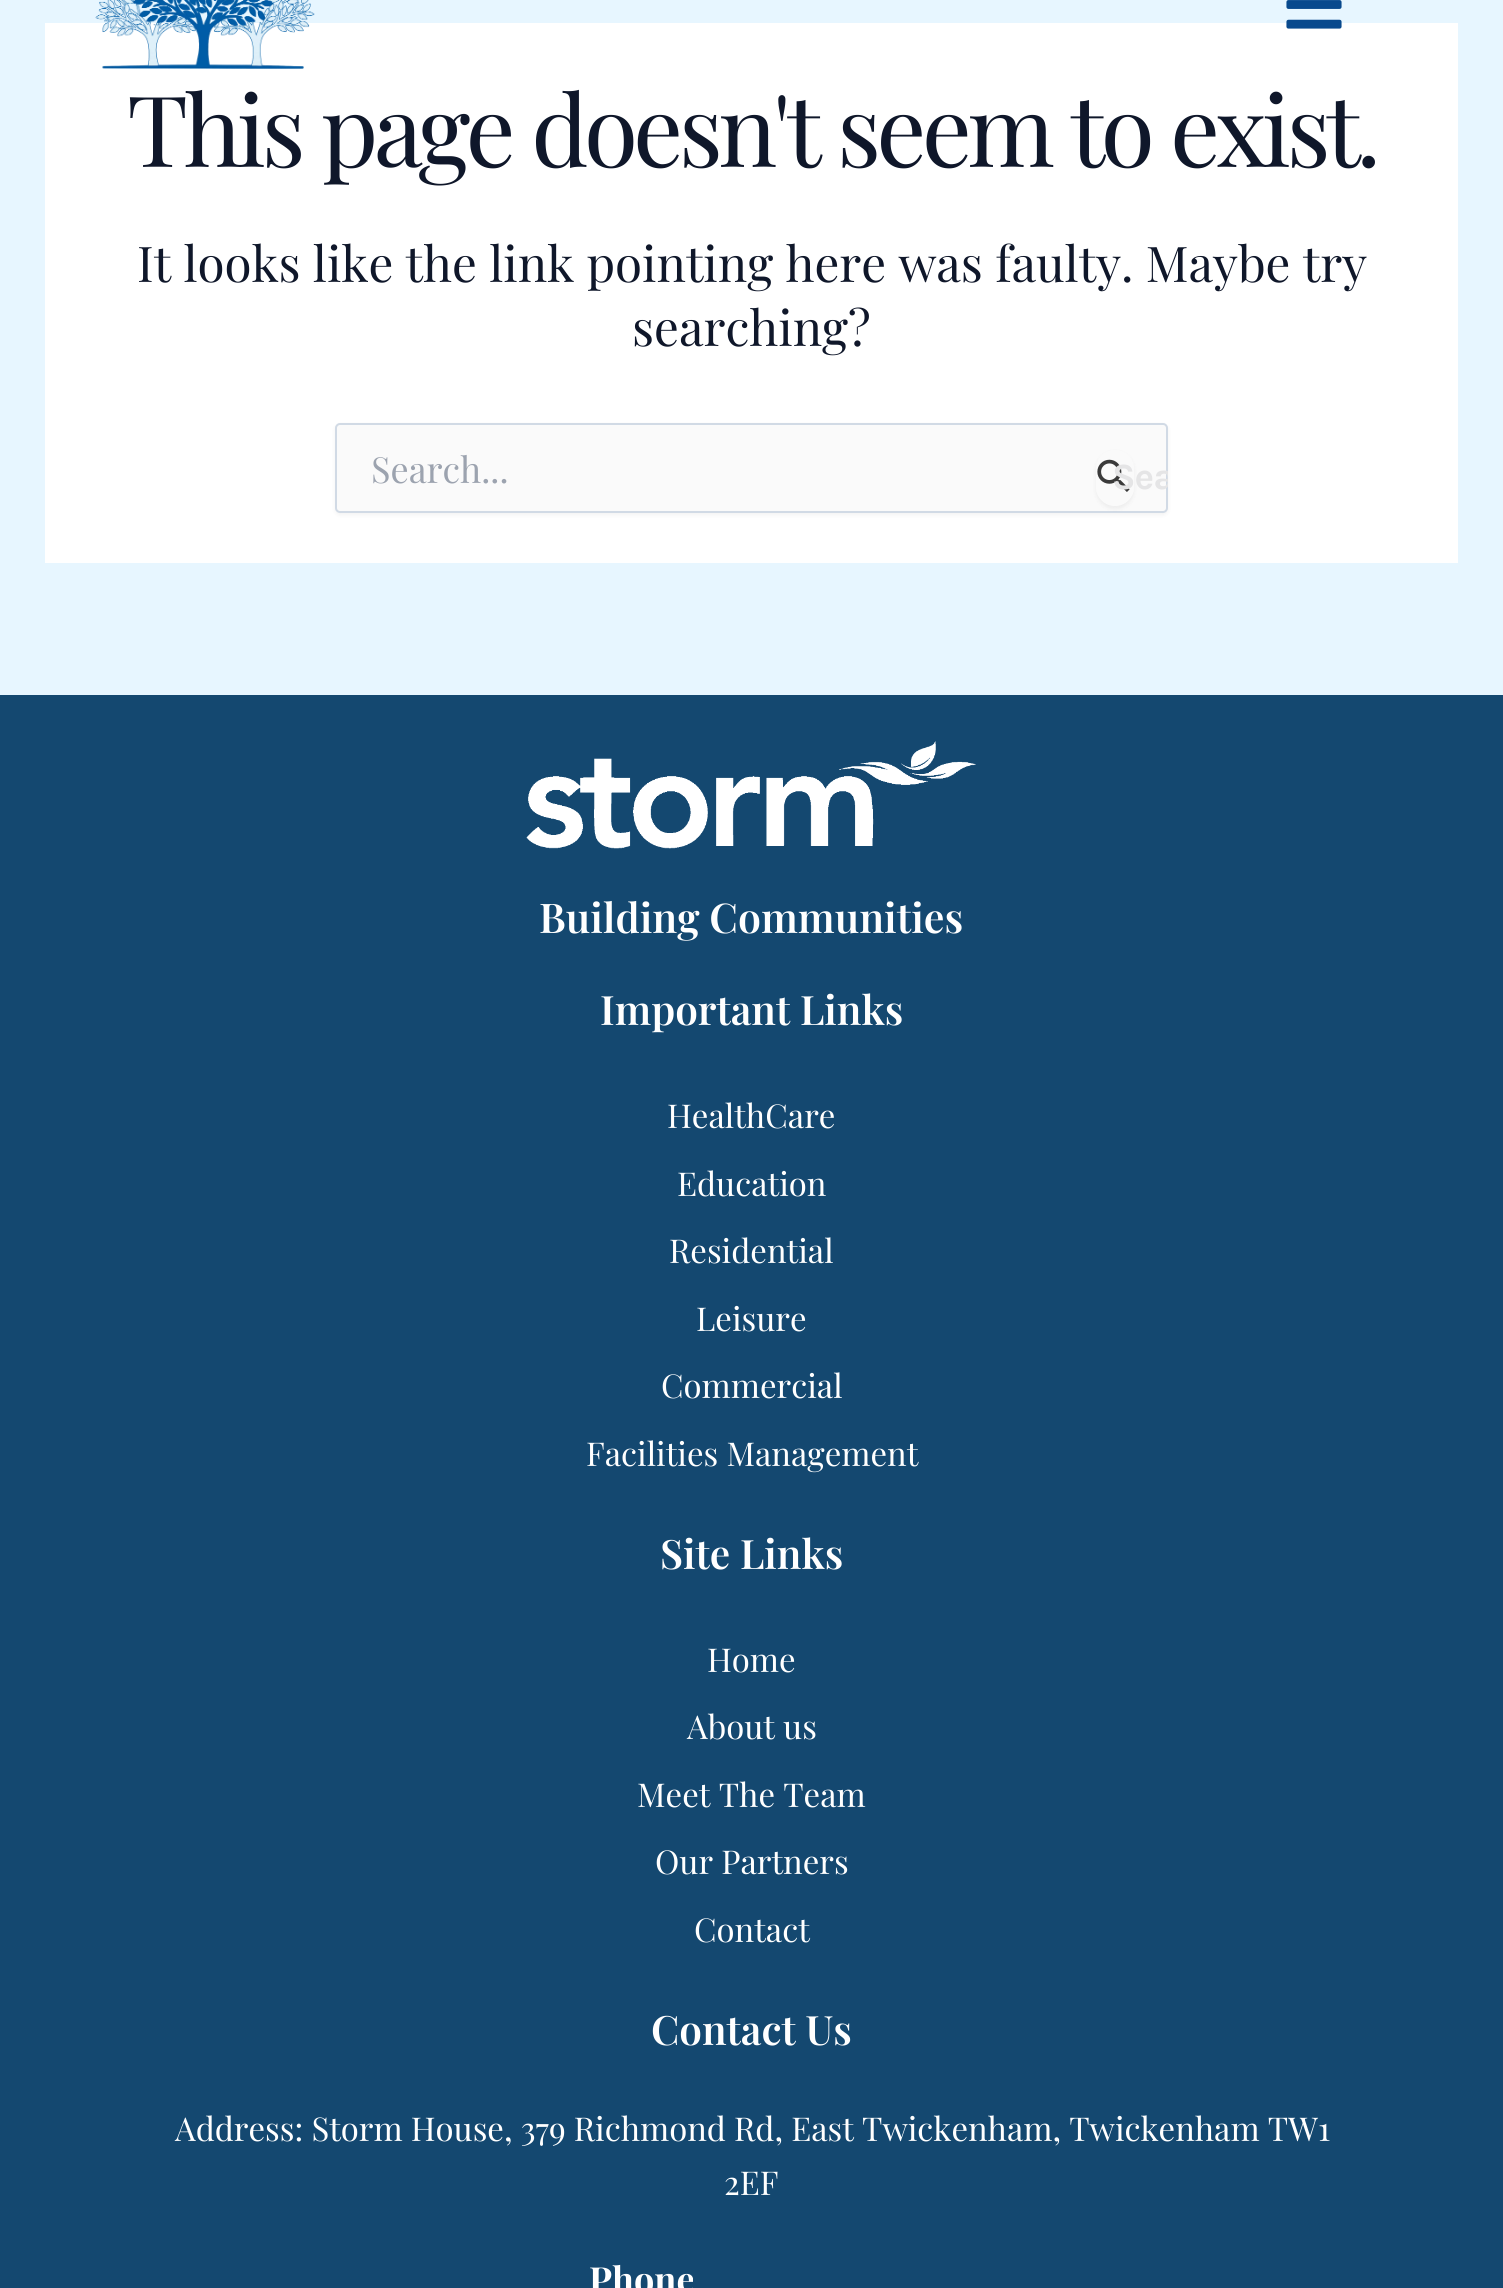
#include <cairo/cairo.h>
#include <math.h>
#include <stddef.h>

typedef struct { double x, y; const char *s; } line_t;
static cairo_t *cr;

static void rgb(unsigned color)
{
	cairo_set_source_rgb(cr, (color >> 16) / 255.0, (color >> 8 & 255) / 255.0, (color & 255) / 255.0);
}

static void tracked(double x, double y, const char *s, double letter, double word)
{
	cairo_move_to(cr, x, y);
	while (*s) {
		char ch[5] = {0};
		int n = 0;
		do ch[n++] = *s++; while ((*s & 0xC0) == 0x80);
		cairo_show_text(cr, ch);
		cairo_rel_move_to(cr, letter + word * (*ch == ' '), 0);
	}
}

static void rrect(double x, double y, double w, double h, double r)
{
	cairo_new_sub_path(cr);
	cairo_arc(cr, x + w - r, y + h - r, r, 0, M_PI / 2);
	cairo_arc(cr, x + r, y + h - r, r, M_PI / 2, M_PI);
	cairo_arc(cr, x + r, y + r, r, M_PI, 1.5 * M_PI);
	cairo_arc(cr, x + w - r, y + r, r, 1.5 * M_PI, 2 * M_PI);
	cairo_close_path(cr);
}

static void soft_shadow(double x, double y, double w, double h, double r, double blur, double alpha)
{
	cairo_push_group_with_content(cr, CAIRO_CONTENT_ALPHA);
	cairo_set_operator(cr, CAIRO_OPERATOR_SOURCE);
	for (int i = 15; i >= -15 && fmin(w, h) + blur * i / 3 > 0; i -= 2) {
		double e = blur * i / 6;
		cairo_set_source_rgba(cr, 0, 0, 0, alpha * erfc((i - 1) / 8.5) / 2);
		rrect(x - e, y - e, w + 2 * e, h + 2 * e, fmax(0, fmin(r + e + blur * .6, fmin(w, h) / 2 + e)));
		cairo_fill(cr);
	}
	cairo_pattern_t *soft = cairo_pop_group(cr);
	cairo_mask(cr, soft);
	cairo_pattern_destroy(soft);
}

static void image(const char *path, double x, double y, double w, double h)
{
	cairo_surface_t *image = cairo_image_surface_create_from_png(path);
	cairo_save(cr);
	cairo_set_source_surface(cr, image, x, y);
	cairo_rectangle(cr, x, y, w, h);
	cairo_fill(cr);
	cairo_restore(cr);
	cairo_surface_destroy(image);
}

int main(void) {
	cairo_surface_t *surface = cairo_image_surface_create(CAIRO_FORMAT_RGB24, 1503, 2288);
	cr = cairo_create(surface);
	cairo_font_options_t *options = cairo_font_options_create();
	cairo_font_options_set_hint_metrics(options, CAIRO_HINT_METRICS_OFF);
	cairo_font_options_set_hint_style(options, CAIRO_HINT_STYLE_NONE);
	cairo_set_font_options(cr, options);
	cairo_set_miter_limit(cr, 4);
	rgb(0xe7f6ff);
	cairo_paint(cr);
	rgb(0xffffff);
	cairo_rectangle(cr, 45, 23, 1413, 540);
	cairo_fill(cr);
	image("img/1.png", 95, 0, 220, 69);
	image("img/2.png", 1286, 0, 56, 29);
	rgb(0x000000);
	soft_shadow(335, 425, 833, 90, 5, 2, 0.05);
	rgb(0xfafafa);
	rrect(336, 424, 831, 88, 4);
	cairo_fill_preserve(cr);
	rgb(0xd1dae5);
	cairo_stroke(cr);
	cairo_save(cr);
	cairo_set_fill_rule(cr, CAIRO_FILL_RULE_EVEN_ODD);
	cairo_new_path(cr);
	cairo_move_to(cr, 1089, 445);
	cairo_line_to(cr, 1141, 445);
	cairo_line_to(cr, 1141, 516);
	cairo_line_to(cr, 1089, 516);
	cairo_close_path(cr);
	cairo_move_to(cr, 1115, 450);
	cairo_curve_to(cr, 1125.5, 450, 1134, 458.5, 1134, 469);
	cairo_line_to(cr, 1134, 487);
	cairo_curve_to(cr, 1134, 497.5, 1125.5, 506, 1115, 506);
	cairo_curve_to(cr, 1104.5, 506, 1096, 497.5, 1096, 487);
	cairo_line_to(cr, 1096, 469);
	cairo_curve_to(cr, 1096, 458.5, 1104.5, 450, 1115, 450);
	cairo_close_path(cr);
	cairo_clip(cr);
	rgb(0x000000);
	soft_shadow(1096, 452, 38, 57, 19, 2, 0.05);
	cairo_restore(cr);
	image("img/3.png", 1097, 459, 33, 33);
	rgb(0x144870);
	cairo_rectangle(cr, 0, 695, 1503, 1593);
	cairo_fill(cr);
	image("img/4.png", 526, 741, 450, 108);
	cairo_select_font_face(cr, "Playfair Display", CAIRO_FONT_SLANT_NORMAL, CAIRO_FONT_WEIGHT_NORMAL);
	cairo_set_font_size(cr, 98.5);
	rgb(0x0f172a);
	tracked(127, 167, "This page doesn't seem to exist.", -4.5, 0);
	cairo_set_font_size(cr, 49.25);
	cairo_move_to(cr, 137, 282);
	cairo_show_text(cr, "It looks like the link pointing here was faulty. Maybe try");
	cairo_move_to(cr, 632, 346);
	cairo_show_text(cr, "searching?");
	cairo_set_font_size(cr, 36);
	rgb(0x9ca3af);
	cairo_move_to(cr, 371, 483);
	cairo_show_text(cr, "Search...");
	cairo_save(cr);
	rrect(1067, 423, 101, 108, 5);
	cairo_clip(cr);
	cairo_select_font_face(cr, "Karla", CAIRO_FONT_SLANT_NORMAL, CAIRO_FONT_WEIGHT_BOLD);
	cairo_set_font_size(cr, 37);
	rgb(0xe5e5e6);
	tracked(1112, 489, "Sea", -1, 0);
	cairo_restore(cr);
	cairo_select_font_face(cr, "Playfair Display SemiBold", CAIRO_FONT_SLANT_NORMAL, CAIRO_FONT_WEIGHT_NORMAL);
	cairo_set_font_size(cr, 41);
	rgb(0xffffff);
	cairo_move_to(cr, 539, 933);
	cairo_show_text(cr, "Building Communities");
	cairo_set_font_size(cr, 40.5);
	cairo_move_to(cr, 600, 1025);
	cairo_show_text(cr, "Important Links");
	cairo_select_font_face(cr, "Playfair Display", CAIRO_FONT_SLANT_NORMAL, CAIRO_FONT_WEIGHT_NORMAL);
	cairo_set_font_size(cr, 32.85);
	{
		static const line_t items[] = {
			{667, 1128, "HealthCare"},
			{677, 1196, "Education"},
			{669, 1263, "Residential"},
			{696, 1331, "Leisure"},
			{661, 1398, "Commercial"},
			{586, 1466, "Facilities Management"},
		};
		for (size_t i = 0; i < sizeof items / sizeof *items; i++) {
			cairo_move_to(cr, items[i].x, items[i].y);
			cairo_show_text(cr, items[i].s);
		}
	}
	cairo_select_font_face(cr, "Playfair Display SemiBold", CAIRO_FONT_SLANT_NORMAL, CAIRO_FONT_WEIGHT_NORMAL);
	cairo_set_font_size(cr, 40.5);
	cairo_move_to(cr, 660, 1569);
	cairo_show_text(cr, "Site Links");
	cairo_select_font_face(cr, "Playfair Display", CAIRO_FONT_SLANT_NORMAL, CAIRO_FONT_WEIGHT_NORMAL);
	cairo_set_font_size(cr, 32.85);
	{
		static const line_t items[] = {
			{707, 1672, "Home"},
			{687, 1739, "About us"},
			{637, 1807, "Meet The Team"},
			{655, 1874, "Our Partners"},
			{694, 1942, "Contact"},
		};
		for (size_t i = 0; i < sizeof items / sizeof *items; i++) {
			cairo_move_to(cr, items[i].x, items[i].y);
			cairo_show_text(cr, items[i].s);
		}
	}
	cairo_select_font_face(cr, "Playfair Display SemiBold", CAIRO_FONT_SLANT_NORMAL, CAIRO_FONT_WEIGHT_NORMAL);
	cairo_set_font_size(cr, 40.5);
	cairo_move_to(cr, 651, 2045);
	cairo_show_text(cr, "Contact Us");
	cairo_select_font_face(cr, "Playfair Display", CAIRO_FONT_SLANT_NORMAL, CAIRO_FONT_WEIGHT_NORMAL);
	cairo_set_font_size(cr, 32.85);
	cairo_move_to(cr, 175, 2141);
	cairo_show_text(cr, "Address: Storm House, 379 Richmond Rd, East Twickenham, Twickenham TW1");
	cairo_move_to(cr, 724, 2195);
	cairo_show_text(cr, "2EF");
	cairo_select_font_face(cr, "Playfair Display", CAIRO_FONT_SLANT_NORMAL, CAIRO_FONT_WEIGHT_BOLD);
	cairo_set_font_size(cr, 36);
	cairo_move_to(cr, 589, 2293);
	cairo_show_text(cr, "Phone");
	cairo_surface_write_to_png(surface, "page.png");
	cairo_font_options_destroy(options);
	cairo_destroy(cr);
	cairo_surface_destroy(surface);
	return 0;
}
